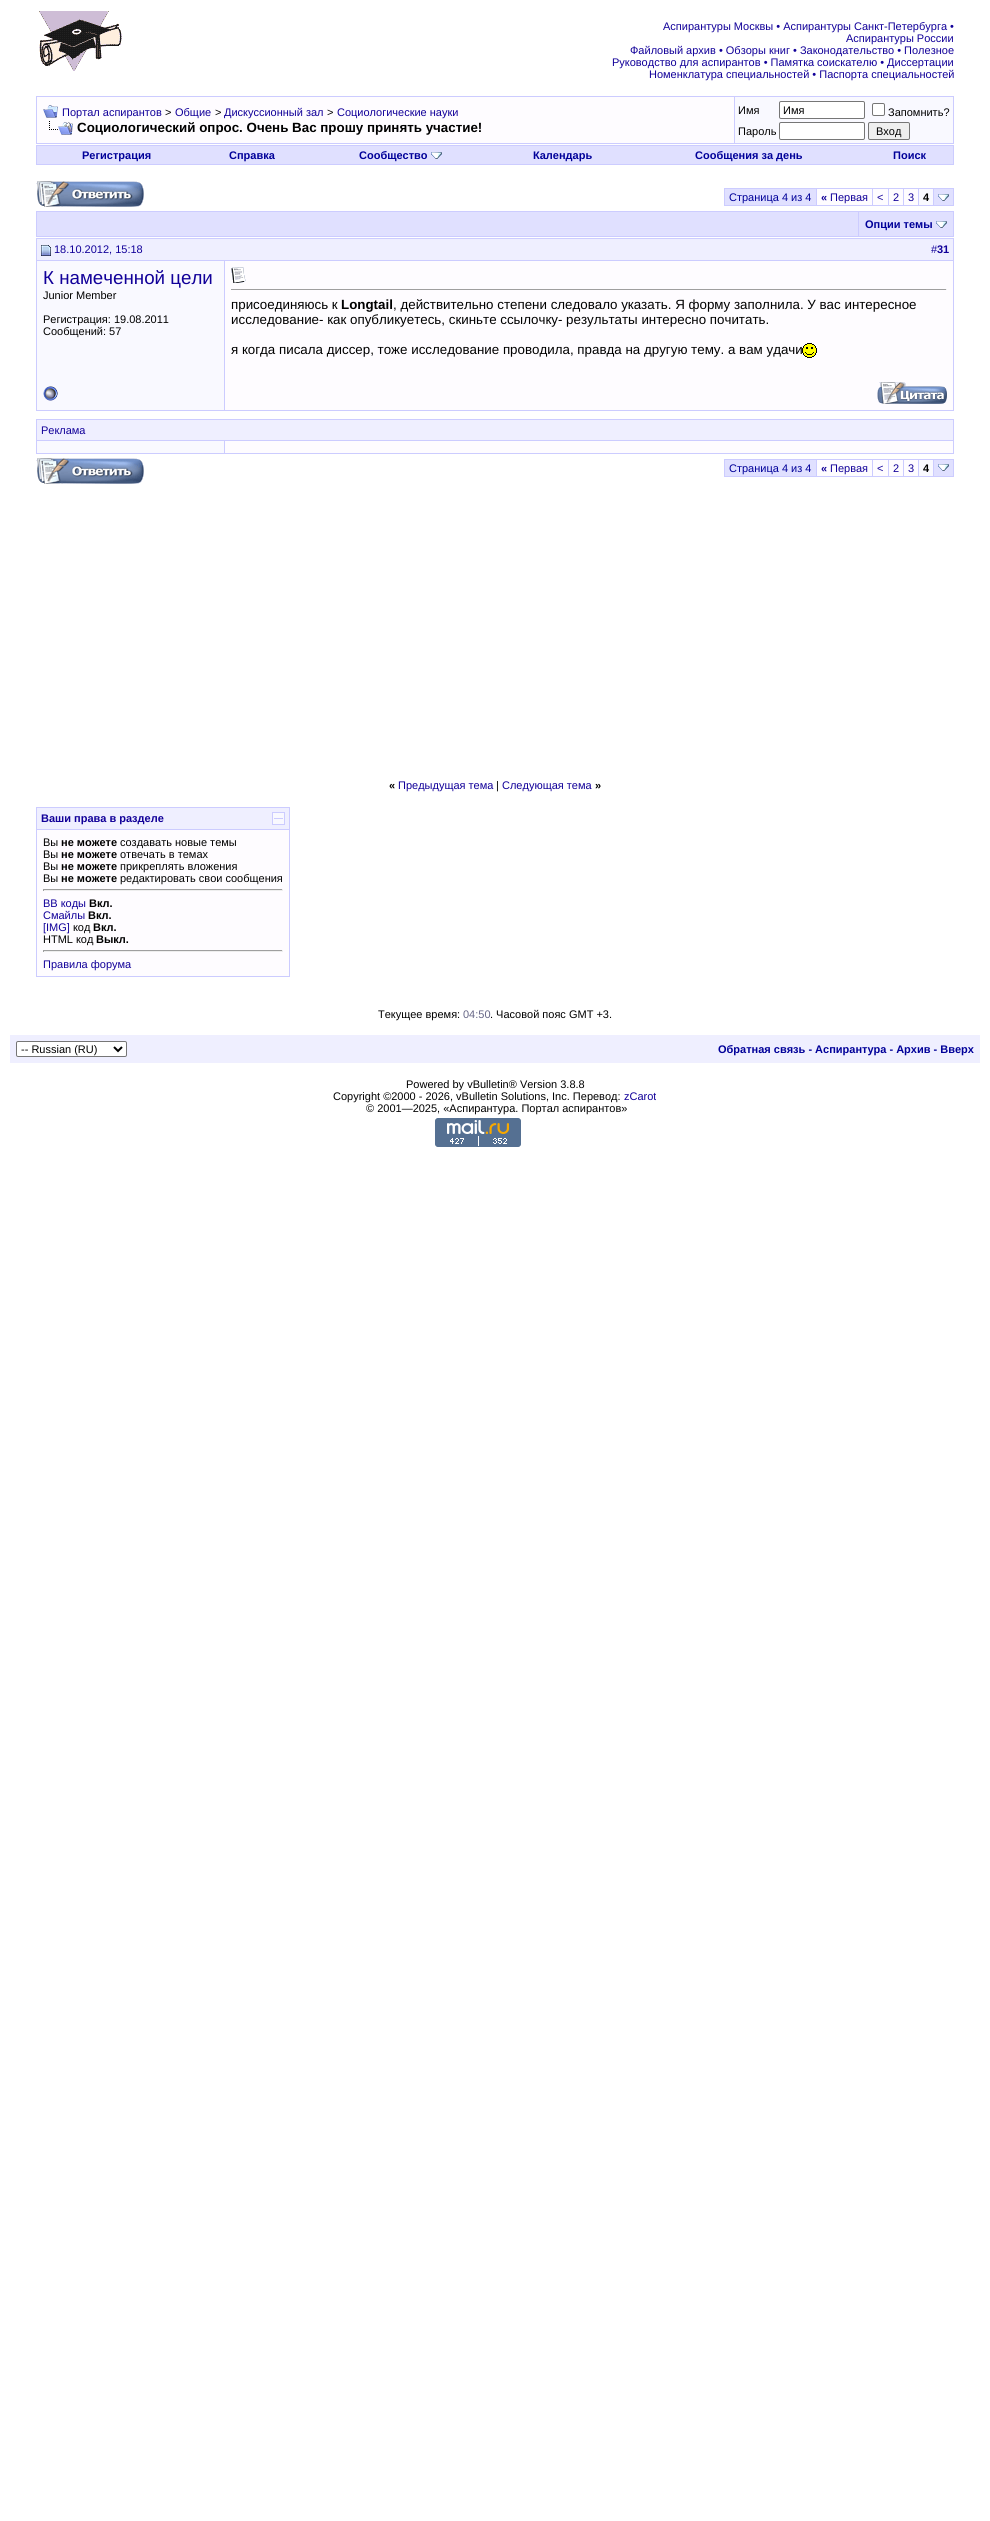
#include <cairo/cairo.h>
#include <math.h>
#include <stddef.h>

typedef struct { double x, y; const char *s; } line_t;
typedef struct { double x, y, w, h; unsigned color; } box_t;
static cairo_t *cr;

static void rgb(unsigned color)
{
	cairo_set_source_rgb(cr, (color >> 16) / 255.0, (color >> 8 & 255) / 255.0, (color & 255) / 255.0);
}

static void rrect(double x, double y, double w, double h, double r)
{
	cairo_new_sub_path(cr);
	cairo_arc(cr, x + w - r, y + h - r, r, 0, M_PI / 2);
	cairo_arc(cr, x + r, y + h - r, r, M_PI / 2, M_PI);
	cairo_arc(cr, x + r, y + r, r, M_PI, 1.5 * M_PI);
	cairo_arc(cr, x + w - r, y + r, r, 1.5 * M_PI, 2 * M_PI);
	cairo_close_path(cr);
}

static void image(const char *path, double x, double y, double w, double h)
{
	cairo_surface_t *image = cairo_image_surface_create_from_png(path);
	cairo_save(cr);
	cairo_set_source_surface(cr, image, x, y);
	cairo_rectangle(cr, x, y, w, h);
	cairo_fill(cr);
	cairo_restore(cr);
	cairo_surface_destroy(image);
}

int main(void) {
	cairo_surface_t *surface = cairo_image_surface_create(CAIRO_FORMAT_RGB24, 990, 2521);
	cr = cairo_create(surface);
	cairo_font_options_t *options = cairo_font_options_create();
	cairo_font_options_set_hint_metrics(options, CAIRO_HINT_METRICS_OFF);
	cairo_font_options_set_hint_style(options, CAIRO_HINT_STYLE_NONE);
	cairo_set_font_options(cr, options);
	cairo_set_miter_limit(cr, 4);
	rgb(0xffffff);
	cairo_paint(cr);
	image("img/1.png", 39, 11, 83, 60);
	rgb(0xccccff);
	cairo_rectangle(cr, 36, 96, 918, 48);
	cairo_fill(cr);
	rgb(0xfefcff);
	cairo_rectangle(cr, 37, 97, 697, 46);
	cairo_fill(cr);
	image("img/2.png", 43, 105, 15, 13);
	image("img/3.png", 49, 121, 24, 14);
	rgb(0xf9f9ff);
	cairo_rectangle(cr, 735, 97, 218, 46);
	cairo_fill(cr);
	rgb(0xffffff);
	rrect(779.5, 101.5, 85, 17, 1.5);
	cairo_fill_preserve(cr);
	rgb(0x767676);
	cairo_set_line_width(cr, 1);
	cairo_stroke(cr);
	rgb(0xffffff);
	rrect(872.5, 103.5, 12, 12, 1.5);
	cairo_fill_preserve(cr);
	rgb(0x767676);
	cairo_stroke(cr);
	rgb(0xffffff);
	rrect(779.5, 122.5, 85, 17, 1.5);
	cairo_fill_preserve(cr);
	rgb(0x767676);
	cairo_stroke(cr);
	rgb(0xefefef);
	rrect(868.5, 122.5, 41, 17, 1.5);
	cairo_fill_preserve(cr);
	rgb(0x767676);
	cairo_stroke(cr);
	rgb(0xccccff);
	cairo_rectangle(cr, 36, 145, 918, 20);
	cairo_fill(cr);
	rgb(0xe0e0ff);
	cairo_rectangle(cr, 37, 146, 916, 18);
	cairo_fill(cr);
	image("img/4.png", 431, 152, 11, 7);
	image("img/5.png", 36, 181, 108, 26);
	{
		static const box_t items[] = {
			{724, 188, 230, 18, 0xccccff},
			{725, 189, 91, 16, 0xe0e0ff},
			{817, 189, 55, 16, 0xfefcff},
			{873, 189, 15, 16, 0xfefcff},
			{889, 189, 14, 16, 0xfefcff},
			{904, 189, 14, 16, 0xfefcff},
			{919, 189, 14, 16, 0xf9f9ff},
			{934, 189, 19, 16, 0xe0e0ff},
		};
		for (size_t i = 0; i < sizeof items / sizeof *items; i++) {
			rgb(items[i].color);
			cairo_rectangle(cr, items[i].x, items[i].y, items[i].w, items[i].h);
			cairo_fill(cr);
		}
	}
	image("img/4.png", 938, 194, 11, 7);
	{
		static const box_t items[] = {
			{36, 211, 918, 26, 0xccccff},
			{37, 212, 821, 24, 0xe0e0ff},
			{859, 212, 94, 24, 0xe0e0ff},
		};
		for (size_t i = 0; i < sizeof items / sizeof *items; i++) {
			rgb(items[i].color);
			cairo_rectangle(cr, items[i].x, items[i].y, items[i].w, items[i].h);
			cairo_fill(cr);
		}
	}
	image("img/4.png", 936, 221, 11, 7);
	{
		static const box_t items[] = {
			{37, 239, 916, 21, 0xefefff},
			{36, 238, 918, 1, 0xccccff},
			{36, 260, 189, 1, 0xccccff},
			{36, 238, 1, 138, 0xccccff},
		};
		for (size_t i = 0; i < sizeof items / sizeof *items; i++) {
			rgb(items[i].color);
			cairo_rectangle(cr, items[i].x, items[i].y, items[i].w, items[i].h);
			cairo_fill(cr);
		}
	}
	image("img/6.png", 41, 245, 10, 11);
	{
		static const box_t items[] = {
			{953, 238, 1, 173, 0xccccff},
			{225, 260, 729, 1, 0xccccff},
			{37, 261, 187, 149, 0xf9f9ff},
			{224, 261, 1, 150, 0xccccff},
			{225, 261, 728, 149, 0xfefcff},
		};
		for (size_t i = 0; i < sizeof items / sizeof *items; i++) {
			rgb(items[i].color);
			cairo_rectangle(cr, items[i].x, items[i].y, items[i].w, items[i].h);
			cairo_fill(cr);
		}
	}
	image("img/7.png", 231, 267, 15, 16);
	rgb(0x9f9f9f);
	cairo_rectangle(cr, 231, 289, 716, 1);
	cairo_fill(cr);
	rgb(0xeeeeee);
	cairo_rectangle(cr, 946, 289, 1, 1);
	cairo_fill(cr);
	image("img/8.png", 802, 343, 15, 15);
	rgb(0xccccff);
	cairo_rectangle(cr, 36, 410, 918, 1);
	cairo_fill(cr);
	cairo_rectangle(cr, 36, 376, 1, 35);
	cairo_fill(cr);
	image("img/9.png", 43, 386, 15, 15);
	image("img/10.png", 877, 382, 70, 22);
	rgb(0xefefff);
	cairo_rectangle(cr, 36.5, 419.5, 917, 21);
	cairo_fill_preserve(cr);
	rgb(0xccccff);
	cairo_stroke(cr);
	{
		static const box_t items[] = {
			{37, 441, 187, 12, 0xf9f9ff},
			{36, 453, 188, 1, 0xccccff},
			{36, 441, 1, 13, 0xccccff},
			{225, 441, 728, 12, 0xfefcff},
			{953, 441, 1, 13, 0xccccff},
			{224, 453, 730, 1, 0xccccff},
			{224, 441, 1, 13, 0xccccff},
		};
		for (size_t i = 0; i < sizeof items / sizeof *items; i++) {
			rgb(items[i].color);
			cairo_rectangle(cr, items[i].x, items[i].y, items[i].w, items[i].h);
			cairo_fill(cr);
		}
	}
	image("img/5.png", 36, 458, 108, 26);
	{
		static const box_t items[] = {
			{724, 459, 230, 18, 0xccccff},
			{725, 460, 91, 16, 0xe0e0ff},
			{817, 460, 55, 16, 0xfefcff},
			{873, 460, 15, 16, 0xfefcff},
			{889, 460, 14, 16, 0xfefcff},
			{904, 460, 14, 16, 0xfefcff},
			{919, 460, 14, 16, 0xf9f9ff},
			{934, 460, 19, 16, 0xe0e0ff},
		};
		for (size_t i = 0; i < sizeof items / sizeof *items; i++) {
			rgb(items[i].color);
			cairo_rectangle(cr, items[i].x, items[i].y, items[i].w, items[i].h);
			cairo_fill(cr);
		}
	}
	image("img/4.png", 938, 464, 11, 7);
	rgb(0xccccff);
	cairo_rectangle(cr, 36, 807, 254, 170);
	cairo_fill(cr);
	rgb(0xefefff);
	cairo_rectangle(cr, 37, 808, 252, 21);
	cairo_fill(cr);
	image("img/11.png", 272, 812, 13, 13);
	{
		static const box_t items[] = {
			{37, 830, 252, 146, 0xfefcff},
			{43, 889, 240, 1, 0x9f9f9f},
			{282, 889, 1, 2, 0xeeeeee},
			{43, 890, 240, 1, 0xeeeeee},
			{43, 889, 1, 2, 0x9f9f9f},
			{43, 950, 240, 1, 0x9f9f9f},
			{282, 950, 1, 2, 0xeeeeee},
			{43, 951, 240, 1, 0xeeeeee},
			{43, 950, 1, 2, 0x9f9f9f},
			{10, 1035, 970, 28, 0xefefff},
		};
		for (size_t i = 0; i < sizeof items / sizeof *items; i++) {
			rgb(items[i].color);
			cairo_rectangle(cr, items[i].x, items[i].y, items[i].w, items[i].h);
			cairo_fill(cr);
		}
	}
	rgb(0xffffff);
	rrect(16.5, 1041.5, 110, 15, 1.5);
	cairo_fill_preserve(cr);
	rgb(0x767676);
	cairo_stroke(cr);
	cairo_new_path(cr);
	cairo_move_to(cr, 114, 1047);
	cairo_line_to(cr, 118, 1051);
	cairo_line_to(cr, 122, 1047);
	rgb(0x000000);
	cairo_set_line_width(cr, 2);
	cairo_stroke(cr);
	image("img/12.png", 435, 1118, 86, 29);
	cairo_select_font_face(cr, "Liberation Sans", CAIRO_FONT_SLANT_NORMAL, CAIRO_FONT_WEIGHT_NORMAL);
	cairo_set_font_size(cr, 11);
	rgb(0x110099);
	{
		static const line_t items[] = {
			{663, 30, "Аспирантуры Москвы • Аспирантуры Санкт-Петербурга •"},
			{846, 42, "Аспирантуры России"},
			{630, 54, "Файловый архив • Обзоры книг • Законодательство • Полезное"},
			{612, 66, "Руководство для аспирантов • Памятка соискателю • Диссертации"},
			{649, 78, "Номенклатура специальностей • Паспорта специальностей"},
			{62, 116, "Портал аспирантов"},
		};
		for (size_t i = 0; i < sizeof items / sizeof *items; i++) {
			cairo_move_to(cr, items[i].x, items[i].y);
			cairo_show_text(cr, items[i].s);
		}
	}
	rgb(0x000000);
	cairo_move_to(cr, 165, 116);
	cairo_show_text(cr, ">");
	rgb(0x110099);
	cairo_move_to(cr, 175, 116);
	cairo_show_text(cr, "Общие");
	rgb(0x000000);
	cairo_move_to(cr, 215, 116);
	cairo_show_text(cr, ">");
	rgb(0x110099);
	cairo_move_to(cr, 224, 116);
	cairo_show_text(cr, "Дискуссионный зал");
	rgb(0x000000);
	cairo_move_to(cr, 327, 116);
	cairo_show_text(cr, ">");
	rgb(0x110099);
	cairo_move_to(cr, 337, 116);
	cairo_show_text(cr, "Социологические науки");
	cairo_select_font_face(cr, "Liberation Sans", CAIRO_FONT_SLANT_NORMAL, CAIRO_FONT_WEIGHT_BOLD);
	cairo_set_font_size(cr, 13.35);
	rgb(0x000000);
	cairo_move_to(cr, 77, 132);
	cairo_show_text(cr, "Социологический опрос. Очень Вас прошу принять участие!");
	cairo_select_font_face(cr, "Liberation Sans", CAIRO_FONT_SLANT_NORMAL, CAIRO_FONT_WEIGHT_NORMAL);
	cairo_set_font_size(cr, 11);
	{
		static const line_t items[] = {
			{738, 114, "Имя"},
			{783, 114, "Имя"},
			{888, 116, "Запомнить?"},
			{738, 135, "Пароль"},
			{876, 135, "Вход"},
		};
		for (size_t i = 0; i < sizeof items / sizeof *items; i++) {
			cairo_move_to(cr, items[i].x, items[i].y);
			cairo_show_text(cr, items[i].s);
		}
	}
	cairo_select_font_face(cr, "Liberation Sans", CAIRO_FONT_SLANT_NORMAL, CAIRO_FONT_WEIGHT_BOLD);
	rgb(0x000099);
	{
		static const line_t items[] = {
			{82, 159, "Регистрация"},
			{229, 159, "Справка"},
			{359, 159, "Сообщество"},
			{533, 159, "Календарь"},
			{695, 159, "Сообщения за день"},
			{893, 159, "Поиск"},
		};
		for (size_t i = 0; i < sizeof items / sizeof *items; i++) {
			cairo_move_to(cr, items[i].x, items[i].y);
			cairo_show_text(cr, items[i].s);
		}
	}
	cairo_select_font_face(cr, "Liberation Sans", CAIRO_FONT_SLANT_NORMAL, CAIRO_FONT_WEIGHT_NORMAL);
	cairo_move_to(cr, 729, 201);
	cairo_show_text(cr, "Страница 4 из 4");
	cairo_select_font_face(cr, "Liberation Sans", CAIRO_FONT_SLANT_NORMAL, CAIRO_FONT_WEIGHT_BOLD);
	rgb(0x110099);
	cairo_move_to(cr, 821, 201);
	cairo_show_text(cr, "«");
	cairo_select_font_face(cr, "Liberation Sans", CAIRO_FONT_SLANT_NORMAL, CAIRO_FONT_WEIGHT_NORMAL);
	{
		static const line_t items[] = {
			{830, 201, "Первая"},
			{877, 201, "<"},
			{893, 201, "2"},
			{908, 201, "3"},
		};
		for (size_t i = 0; i < sizeof items / sizeof *items; i++) {
			cairo_move_to(cr, items[i].x, items[i].y);
			cairo_show_text(cr, items[i].s);
		}
	}
	cairo_select_font_face(cr, "Liberation Sans", CAIRO_FONT_SLANT_NORMAL, CAIRO_FONT_WEIGHT_BOLD);
	rgb(0x000000);
	cairo_move_to(cr, 923, 201);
	cairo_show_text(cr, "4");
	rgb(0x000099);
	cairo_move_to(cr, 865, 228);
	cairo_show_text(cr, "Опции темы");
	cairo_select_font_face(cr, "Liberation Sans", CAIRO_FONT_SLANT_NORMAL, CAIRO_FONT_WEIGHT_NORMAL);
	rgb(0x110099);
	cairo_move_to(cr, 54, 253);
	cairo_show_text(cr, "18.10.2012, 15:18");
	cairo_move_to(cr, 931, 253);
	cairo_show_text(cr, "#");
	cairo_select_font_face(cr, "Liberation Sans", CAIRO_FONT_SLANT_NORMAL, CAIRO_FONT_WEIGHT_BOLD);
	cairo_move_to(cr, 937, 253);
	cairo_show_text(cr, "31");
	cairo_select_font_face(cr, "Liberation Sans", CAIRO_FONT_SLANT_NORMAL, CAIRO_FONT_WEIGHT_NORMAL);
	cairo_set_font_size(cr, 18.75);
	cairo_move_to(cr, 43, 284);
	cairo_show_text(cr, "К намеченной цели");
	cairo_set_font_size(cr, 11);
	rgb(0x000000);
	{
		static const line_t items[] = {
			{43, 299, "Junior Member"},
			{43, 323, "Регистрация: 19.08.2011"},
			{43, 335, "Сообщений: 57"},
		};
		for (size_t i = 0; i < sizeof items / sizeof *items; i++) {
			cairo_move_to(cr, items[i].x, items[i].y);
			cairo_show_text(cr, items[i].s);
		}
	}
	cairo_set_font_size(cr, 13.35);
	cairo_move_to(cr, 231, 309);
	cairo_show_text(cr, "присоединяюсь к");
	cairo_select_font_face(cr, "Liberation Sans", CAIRO_FONT_SLANT_NORMAL, CAIRO_FONT_WEIGHT_BOLD);
	cairo_move_to(cr, 341, 309);
	cairo_show_text(cr, "Longtail");
	cairo_select_font_face(cr, "Liberation Sans", CAIRO_FONT_SLANT_NORMAL, CAIRO_FONT_WEIGHT_NORMAL);
	{
		static const line_t items[] = {
			{393, 309, ", действительно степени следовало указать. Я форму заполнила. У вас интересное"},
			{231, 324, "исследование- как опубликуетесь, скиньте ссылочку- результаты интересно почитать."},
			{231, 354, "я когда писала диссер, тоже исследование проводила, правда на другую тему. а вам удачи"},
		};
		for (size_t i = 0; i < sizeof items / sizeof *items; i++) {
			cairo_move_to(cr, items[i].x, items[i].y);
			cairo_show_text(cr, items[i].s);
		}
	}
	cairo_set_font_size(cr, 11);
	rgb(0x110099);
	cairo_move_to(cr, 41, 434);
	cairo_show_text(cr, "Реклама");
	rgb(0x000099);
	cairo_move_to(cr, 729, 472);
	cairo_show_text(cr, "Страница 4 из 4");
	cairo_select_font_face(cr, "Liberation Sans", CAIRO_FONT_SLANT_NORMAL, CAIRO_FONT_WEIGHT_BOLD);
	rgb(0x110099);
	cairo_move_to(cr, 821, 472);
	cairo_show_text(cr, "«");
	cairo_select_font_face(cr, "Liberation Sans", CAIRO_FONT_SLANT_NORMAL, CAIRO_FONT_WEIGHT_NORMAL);
	{
		static const line_t items[] = {
			{830, 472, "Первая"},
			{877, 472, "<"},
			{893, 472, "2"},
			{908, 472, "3"},
		};
		for (size_t i = 0; i < sizeof items / sizeof *items; i++) {
			cairo_move_to(cr, items[i].x, items[i].y);
			cairo_show_text(cr, items[i].s);
		}
	}
	cairo_select_font_face(cr, "Liberation Sans", CAIRO_FONT_SLANT_NORMAL, CAIRO_FONT_WEIGHT_BOLD);
	rgb(0x000000);
	cairo_move_to(cr, 923, 472);
	cairo_show_text(cr, "4");
	cairo_move_to(cr, 389, 789);
	cairo_show_text(cr, "«");
	cairo_select_font_face(cr, "Liberation Sans", CAIRO_FONT_SLANT_NORMAL, CAIRO_FONT_WEIGHT_NORMAL);
	rgb(0x110099);
	cairo_move_to(cr, 398, 789);
	cairo_show_text(cr, "Предыдущая тема");
	rgb(0x000000);
	cairo_move_to(cr, 496, 789);
	cairo_show_text(cr, "|");
	rgb(0x110099);
	cairo_move_to(cr, 502, 789);
	cairo_show_text(cr, "Следующая тема");
	cairo_select_font_face(cr, "Liberation Sans", CAIRO_FONT_SLANT_NORMAL, CAIRO_FONT_WEIGHT_BOLD);
	rgb(0x000000);
	cairo_move_to(cr, 595, 789);
	cairo_show_text(cr, "»");
	rgb(0x110099);
	cairo_move_to(cr, 41, 822);
	cairo_show_text(cr, "Ваши права в разделе");
	cairo_select_font_face(cr, "Liberation Sans", CAIRO_FONT_SLANT_NORMAL, CAIRO_FONT_WEIGHT_NORMAL);
	rgb(0x000000);
	cairo_move_to(cr, 43, 846);
	cairo_show_text(cr, "Вы");
	cairo_select_font_face(cr, "Liberation Sans", CAIRO_FONT_SLANT_NORMAL, CAIRO_FONT_WEIGHT_BOLD);
	cairo_move_to(cr, 61, 846);
	cairo_show_text(cr, "не можете");
	cairo_select_font_face(cr, "Liberation Sans", CAIRO_FONT_SLANT_NORMAL, CAIRO_FONT_WEIGHT_NORMAL);
	cairo_move_to(cr, 120, 846);
	cairo_show_text(cr, "создавать новые темы");
	cairo_move_to(cr, 43, 858);
	cairo_show_text(cr, "Вы");
	cairo_select_font_face(cr, "Liberation Sans", CAIRO_FONT_SLANT_NORMAL, CAIRO_FONT_WEIGHT_BOLD);
	cairo_move_to(cr, 61, 858);
	cairo_show_text(cr, "не можете");
	cairo_select_font_face(cr, "Liberation Sans", CAIRO_FONT_SLANT_NORMAL, CAIRO_FONT_WEIGHT_NORMAL);
	cairo_move_to(cr, 120, 858);
	cairo_show_text(cr, "отвечать в темах");
	cairo_move_to(cr, 43, 870);
	cairo_show_text(cr, "Вы");
	cairo_select_font_face(cr, "Liberation Sans", CAIRO_FONT_SLANT_NORMAL, CAIRO_FONT_WEIGHT_BOLD);
	cairo_move_to(cr, 61, 870);
	cairo_show_text(cr, "не можете");
	cairo_select_font_face(cr, "Liberation Sans", CAIRO_FONT_SLANT_NORMAL, CAIRO_FONT_WEIGHT_NORMAL);
	cairo_move_to(cr, 120, 870);
	cairo_show_text(cr, "прикреплять вложения");
	cairo_move_to(cr, 43, 882);
	cairo_show_text(cr, "Вы");
	cairo_select_font_face(cr, "Liberation Sans", CAIRO_FONT_SLANT_NORMAL, CAIRO_FONT_WEIGHT_BOLD);
	cairo_move_to(cr, 61, 882);
	cairo_show_text(cr, "не можете");
	cairo_select_font_face(cr, "Liberation Sans", CAIRO_FONT_SLANT_NORMAL, CAIRO_FONT_WEIGHT_NORMAL);
	cairo_move_to(cr, 120, 882);
	cairo_show_text(cr, "редактировать свои сообщения");
	rgb(0x110099);
	cairo_move_to(cr, 43, 907);
	cairo_show_text(cr, "BB коды");
	cairo_select_font_face(cr, "Liberation Sans", CAIRO_FONT_SLANT_NORMAL, CAIRO_FONT_WEIGHT_BOLD);
	rgb(0x000000);
	cairo_move_to(cr, 89, 907);
	cairo_show_text(cr, "Вкл.");
	cairo_select_font_face(cr, "Liberation Sans", CAIRO_FONT_SLANT_NORMAL, CAIRO_FONT_WEIGHT_NORMAL);
	rgb(0x110099);
	cairo_move_to(cr, 43, 919);
	cairo_show_text(cr, "Смайлы");
	cairo_select_font_face(cr, "Liberation Sans", CAIRO_FONT_SLANT_NORMAL, CAIRO_FONT_WEIGHT_BOLD);
	rgb(0x000000);
	cairo_move_to(cr, 88, 919);
	cairo_show_text(cr, "Вкл.");
	cairo_select_font_face(cr, "Liberation Sans", CAIRO_FONT_SLANT_NORMAL, CAIRO_FONT_WEIGHT_NORMAL);
	rgb(0x110099);
	cairo_move_to(cr, 43, 931);
	cairo_show_text(cr, "[IMG]");
	rgb(0x000000);
	cairo_move_to(cr, 73, 931);
	cairo_show_text(cr, "код");
	cairo_select_font_face(cr, "Liberation Sans", CAIRO_FONT_SLANT_NORMAL, CAIRO_FONT_WEIGHT_BOLD);
	cairo_move_to(cr, 93, 931);
	cairo_show_text(cr, "Вкл.");
	cairo_select_font_face(cr, "Liberation Sans", CAIRO_FONT_SLANT_NORMAL, CAIRO_FONT_WEIGHT_NORMAL);
	cairo_move_to(cr, 43, 943);
	cairo_show_text(cr, "HTML код");
	cairo_select_font_face(cr, "Liberation Sans", CAIRO_FONT_SLANT_NORMAL, CAIRO_FONT_WEIGHT_BOLD);
	cairo_move_to(cr, 96, 943);
	cairo_show_text(cr, "Выкл.");
	cairo_select_font_face(cr, "Liberation Sans", CAIRO_FONT_SLANT_NORMAL, CAIRO_FONT_WEIGHT_NORMAL);
	rgb(0x110099);
	cairo_move_to(cr, 43, 968);
	cairo_show_text(cr, "Правила форума");
	rgb(0x000000);
	cairo_move_to(cr, 378, 1018);
	cairo_show_text(cr, "Текущее время:");
	rgb(0x666686);
	cairo_move_to(cr, 463, 1018);
	cairo_show_text(cr, "04:50");
	rgb(0x000000);
	cairo_move_to(cr, 490, 1018);
	cairo_show_text(cr, ". Часовой пояс GMT +3.");
	cairo_move_to(cr, 21, 1053);
	cairo_show_text(cr, "-- Russian (RU)");
	cairo_select_font_face(cr, "Liberation Sans", CAIRO_FONT_SLANT_NORMAL, CAIRO_FONT_WEIGHT_BOLD);
	rgb(0x000099);
	cairo_move_to(cr, 718, 1053);
	cairo_show_text(cr, "Обратная связь - Аспирантура - Архив - Вверх");
	cairo_select_font_face(cr, "Liberation Sans", CAIRO_FONT_SLANT_NORMAL, CAIRO_FONT_WEIGHT_NORMAL);
	rgb(0x000000);
	cairo_move_to(cr, 406, 1088);
	cairo_show_text(cr, "Powered by vBulletin® Version 3.8.8");
	cairo_move_to(cr, 333, 1100);
	cairo_show_text(cr, "Copyright ©2000 - 2026, vBulletin Solutions, Inc. Перевод:");
	rgb(0x110099);
	cairo_move_to(cr, 624, 1100);
	cairo_show_text(cr, "zCarot");
	rgb(0x000000);
	cairo_move_to(cr, 366, 1112);
	cairo_show_text(cr, "© 2001—2025, «Аспирантура. Портал аспирантов»");
	cairo_surface_write_to_png(surface, "page.png");
	cairo_font_options_destroy(options);
	cairo_destroy(cr);
	cairo_surface_destroy(surface);
	return 0;
}
